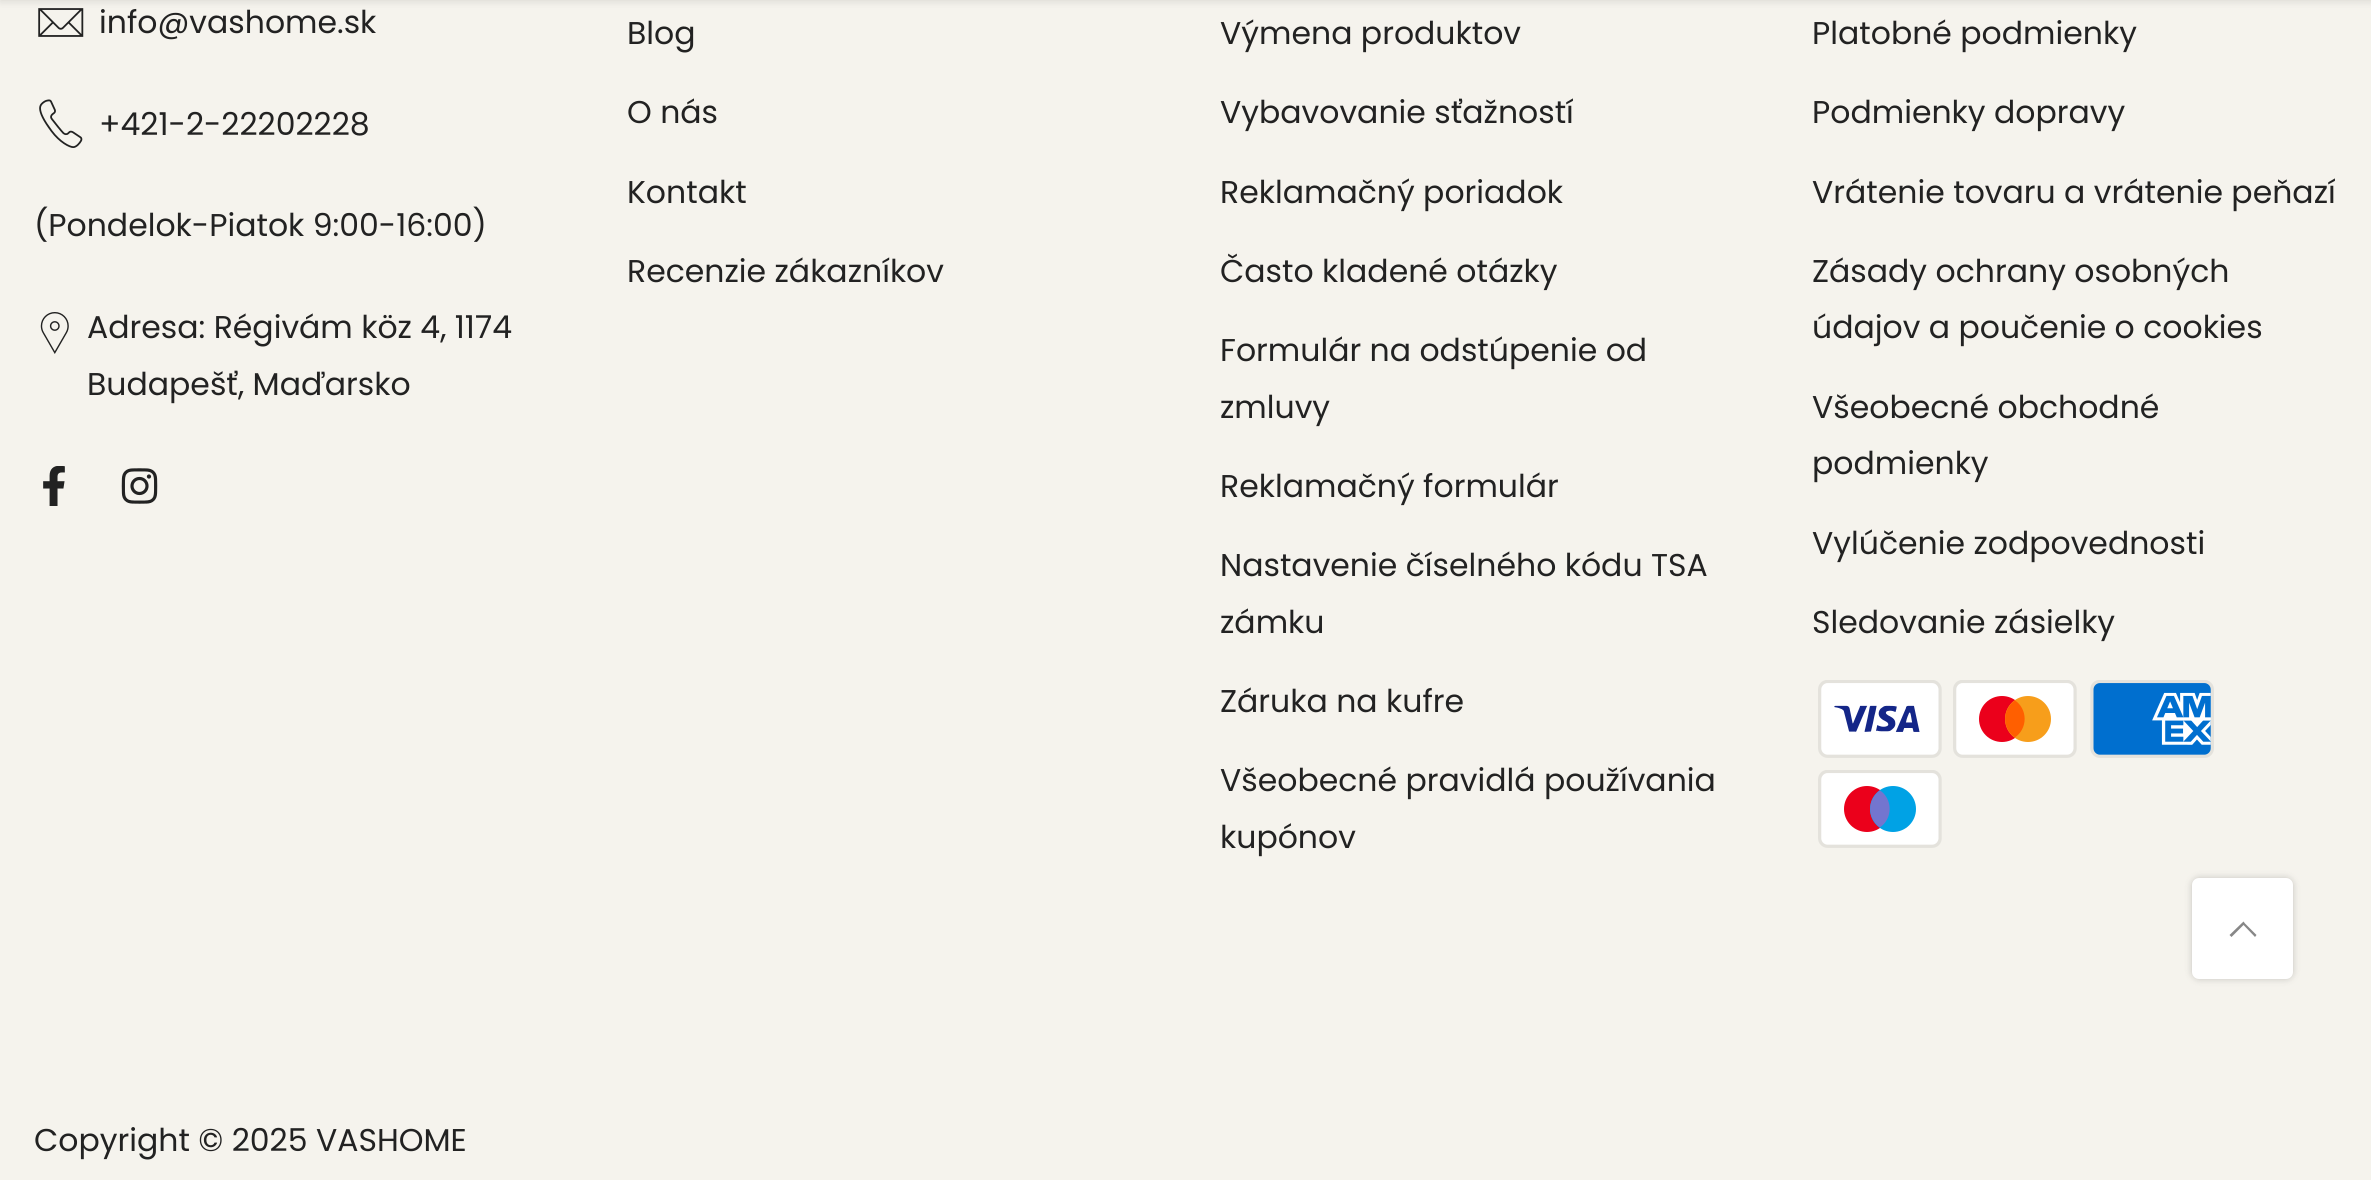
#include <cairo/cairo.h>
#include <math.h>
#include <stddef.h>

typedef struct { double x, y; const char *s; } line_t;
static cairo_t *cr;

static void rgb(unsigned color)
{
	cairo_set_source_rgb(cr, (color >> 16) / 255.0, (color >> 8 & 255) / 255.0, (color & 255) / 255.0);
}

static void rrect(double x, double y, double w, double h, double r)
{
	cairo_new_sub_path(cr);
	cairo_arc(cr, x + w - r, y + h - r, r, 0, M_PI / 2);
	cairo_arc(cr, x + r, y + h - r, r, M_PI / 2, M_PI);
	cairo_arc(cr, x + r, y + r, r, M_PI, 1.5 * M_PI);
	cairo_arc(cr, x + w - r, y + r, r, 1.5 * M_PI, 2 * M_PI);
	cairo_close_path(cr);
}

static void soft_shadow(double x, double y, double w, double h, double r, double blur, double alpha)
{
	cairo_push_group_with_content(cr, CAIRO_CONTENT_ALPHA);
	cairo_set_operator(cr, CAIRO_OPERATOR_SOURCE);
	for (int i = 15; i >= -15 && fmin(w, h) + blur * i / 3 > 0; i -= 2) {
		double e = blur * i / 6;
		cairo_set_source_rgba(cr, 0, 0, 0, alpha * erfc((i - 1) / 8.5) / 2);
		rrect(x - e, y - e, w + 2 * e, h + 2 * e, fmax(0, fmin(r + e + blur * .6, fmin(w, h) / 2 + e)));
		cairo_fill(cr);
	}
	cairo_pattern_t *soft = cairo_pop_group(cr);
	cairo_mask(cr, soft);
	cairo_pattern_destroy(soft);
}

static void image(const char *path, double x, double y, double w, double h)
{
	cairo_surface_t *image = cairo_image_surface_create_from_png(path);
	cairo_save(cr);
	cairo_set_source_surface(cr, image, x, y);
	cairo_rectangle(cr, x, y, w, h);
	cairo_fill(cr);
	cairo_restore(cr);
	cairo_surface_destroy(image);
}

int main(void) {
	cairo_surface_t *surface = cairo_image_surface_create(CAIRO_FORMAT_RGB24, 2371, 1180);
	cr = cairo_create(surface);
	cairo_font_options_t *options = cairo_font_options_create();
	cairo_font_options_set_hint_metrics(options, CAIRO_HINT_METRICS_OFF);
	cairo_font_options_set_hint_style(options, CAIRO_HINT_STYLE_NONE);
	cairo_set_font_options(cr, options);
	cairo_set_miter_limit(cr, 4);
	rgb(0xf5f3ed);
	cairo_paint(cr);
	image("img/1.png", 38, 8, 46, 29);
	rgb(0x000000);
	soft_shadow(0, -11, 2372, 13, 0, 3.5, 0.1);
	image("img/2.png", 39, 99, 44, 49);
	image("img/3.png", 40, 312, 29, 42);
	image("img/4.png", 43, 466, 22, 40);
	image("img/5.png", 121, 468, 37, 36);
	image("img/6.png", 1818, 680, 124, 78);
	image("img/7.png", 1953, 680, 124, 78);
	image("img/8.png", 2090, 680, 124, 78);
	image("img/9.png", 1818, 770, 124, 78);
	soft_shadow(2192, 878, 101, 101, 7, 3.5, 0.2);
	rgb(0xffffff);
	rrect(2192, 878, 101, 101, 7);
	cairo_fill(cr);
	rgb(0x878787);
	cairo_new_path(cr);
	cairo_move_to(cr, 2245, 923.5);
	cairo_line_to(cr, 2243.5, 921.5);
	cairo_line_to(cr, 2229.5, 935);
	cairo_line_to(cr, 2231.5, 937);
	cairo_line_to(cr, 2243.5, 925);
	cairo_line_to(cr, 2255, 937);
	cairo_line_to(cr, 2256.5, 935);
	cairo_line_to(cr, 2250, 928.5);
	cairo_close_path(cr);
	cairo_fill(cr);
	cairo_select_font_face(cr, "Poppins", CAIRO_FONT_SLANT_NORMAL, CAIRO_FONT_WEIGHT_NORMAL);
	cairo_set_font_size(cr, 31.5);
	rgb(0x222222);
	{
		static const line_t items[] = {
			{99, 33, "info@vashome.sk"},
			{99, 135, "+421-2-22202228"},
			{34, 236, "(Pondelok-Piatok 9:00-16:00)"},
			{87, 338, "Adresa: Régivám köz 4, 1174"},
			{87, 395, "Budapešť, Maďarsko"},
			{627, 44, "Blog"},
			{627, 123, "O nás"},
			{627, 203, "Kontakt"},
			{627, 282, "Recenzie zákazníkov"},
			{1220, 44, "Výmena produktov"},
			{1220, 123, "Vybavovanie sťažností"},
			{1220, 203, "Reklamačný poriadok"},
			{1220, 282, "Často kladené otázky"},
			{1220, 361, "Formulár na odstúpenie od"},
			{1220, 418, "zmluvy"},
			{1220, 497, "Reklamačný formulár"},
			{1220, 576, "Nastavenie číselného kódu TSA"},
			{1220, 633, "zámku"},
			{1220, 712, "Záruka na kufre"},
			{1220, 791, "Všeobecné pravidlá používania"},
			{1220, 848, "kupónov"},
			{1812, 44, "Platobné podmienky"},
			{1812, 123, "Podmienky dopravy"},
			{1812, 203, "Vrátenie tovaru a vrátenie peňazí"},
			{1812, 282, "Zásady ochrany osobných"},
			{1812, 338, "údajov a poučenie o cookies"},
			{1812, 418, "Všeobecné obchodné"},
			{1812, 474, "podmienky"},
			{1812, 554, "Vylúčenie zodpovednosti"},
			{1812, 633, "Sledovanie zásielky"},
			{34, 1151, "Copyright © 2025 VASHOME"},
		};
		for (size_t i = 0; i < sizeof items / sizeof *items; i++) {
			cairo_move_to(cr, items[i].x, items[i].y);
			cairo_show_text(cr, items[i].s);
		}
	}
	cairo_surface_write_to_png(surface, "page.png");
	cairo_font_options_destroy(options);
	cairo_destroy(cr);
	cairo_surface_destroy(surface);
	return 0;
}
